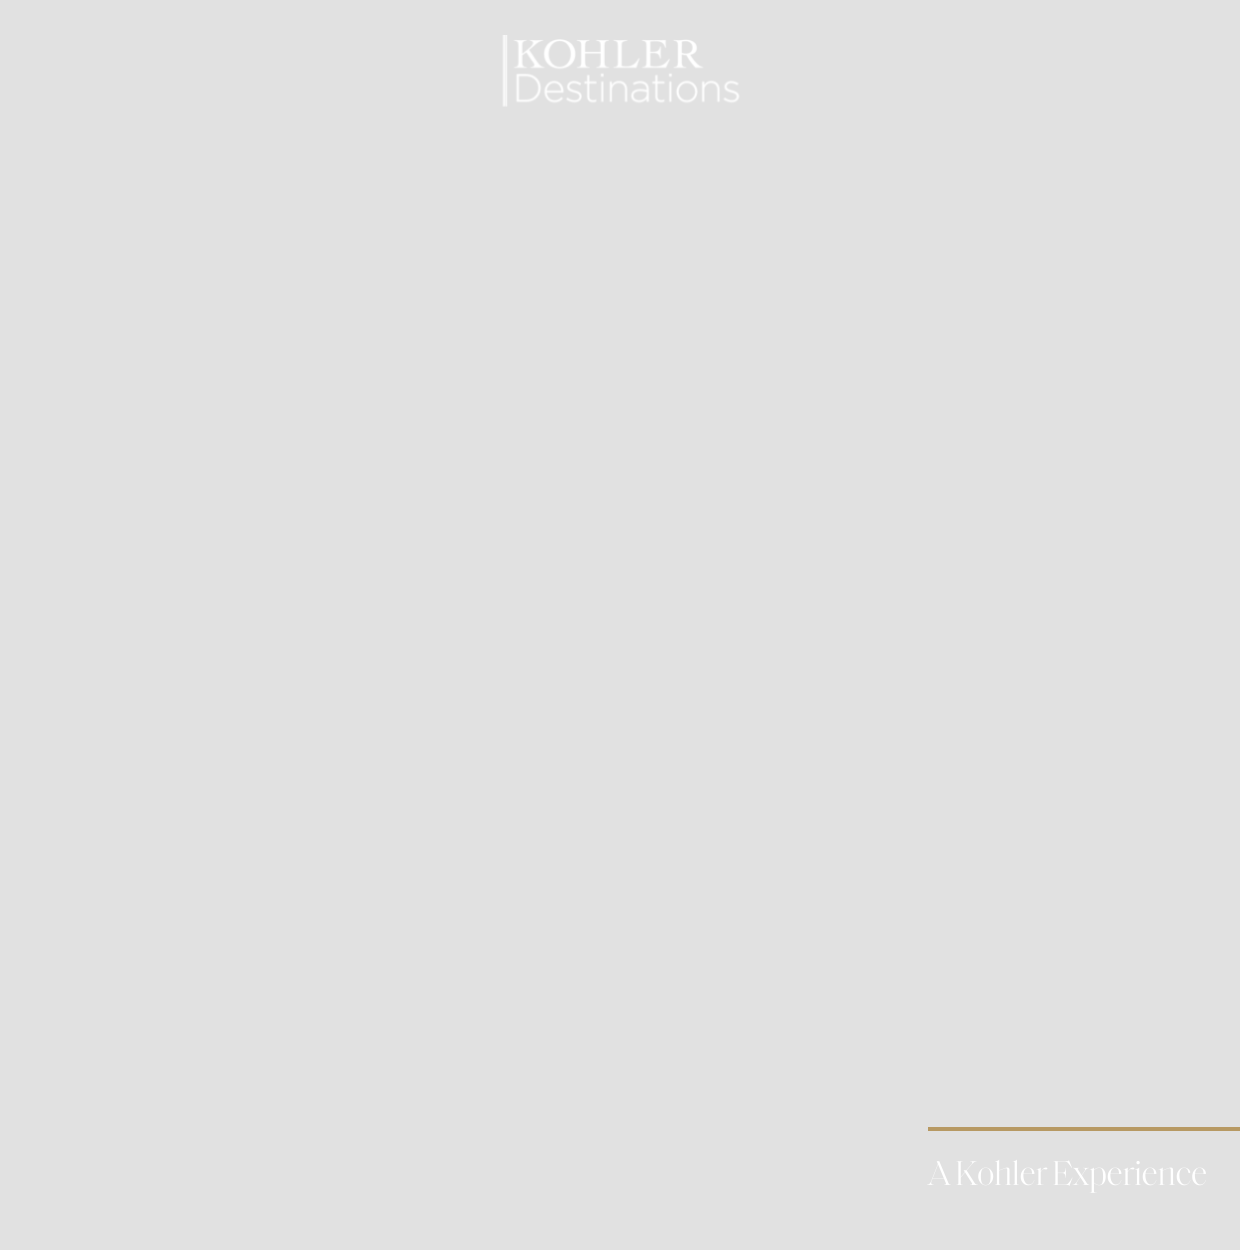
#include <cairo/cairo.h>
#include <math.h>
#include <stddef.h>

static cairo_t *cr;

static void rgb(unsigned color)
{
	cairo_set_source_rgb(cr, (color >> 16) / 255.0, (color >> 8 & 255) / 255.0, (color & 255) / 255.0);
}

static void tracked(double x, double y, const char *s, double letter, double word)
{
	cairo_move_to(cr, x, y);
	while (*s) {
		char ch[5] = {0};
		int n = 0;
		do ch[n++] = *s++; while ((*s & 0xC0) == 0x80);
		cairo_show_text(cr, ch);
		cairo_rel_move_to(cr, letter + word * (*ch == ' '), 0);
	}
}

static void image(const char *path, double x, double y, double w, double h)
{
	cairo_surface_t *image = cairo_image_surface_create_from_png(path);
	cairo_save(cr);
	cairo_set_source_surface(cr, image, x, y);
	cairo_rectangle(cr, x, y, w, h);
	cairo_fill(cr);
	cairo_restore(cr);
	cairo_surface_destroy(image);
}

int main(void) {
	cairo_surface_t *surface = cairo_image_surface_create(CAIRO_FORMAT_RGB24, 1240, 1250);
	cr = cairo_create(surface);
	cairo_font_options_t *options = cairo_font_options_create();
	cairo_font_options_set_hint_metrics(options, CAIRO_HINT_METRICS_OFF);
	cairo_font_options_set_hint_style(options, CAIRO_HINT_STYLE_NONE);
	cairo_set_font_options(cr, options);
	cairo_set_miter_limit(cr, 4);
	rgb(0xe1e1e1);
	cairo_paint(cr);
	image("img/1.png", 502, 35, 238, 72);
	rgb(0xb79963);
	cairo_rectangle(cr, 928, 1127, 312, 4);
	cairo_fill(cr);
	cairo_select_font_face(cr, "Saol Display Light", CAIRO_FONT_SLANT_NORMAL, CAIRO_FONT_WEIGHT_NORMAL);
	cairo_set_font_size(cr, 35);
	rgb(0xffffff);
	tracked(928, 1185, "A Kohler Experience", -1, 0);
	cairo_surface_write_to_png(surface, "page.png");
	cairo_font_options_destroy(options);
	cairo_destroy(cr);
	cairo_surface_destroy(surface);
	return 0;
}
